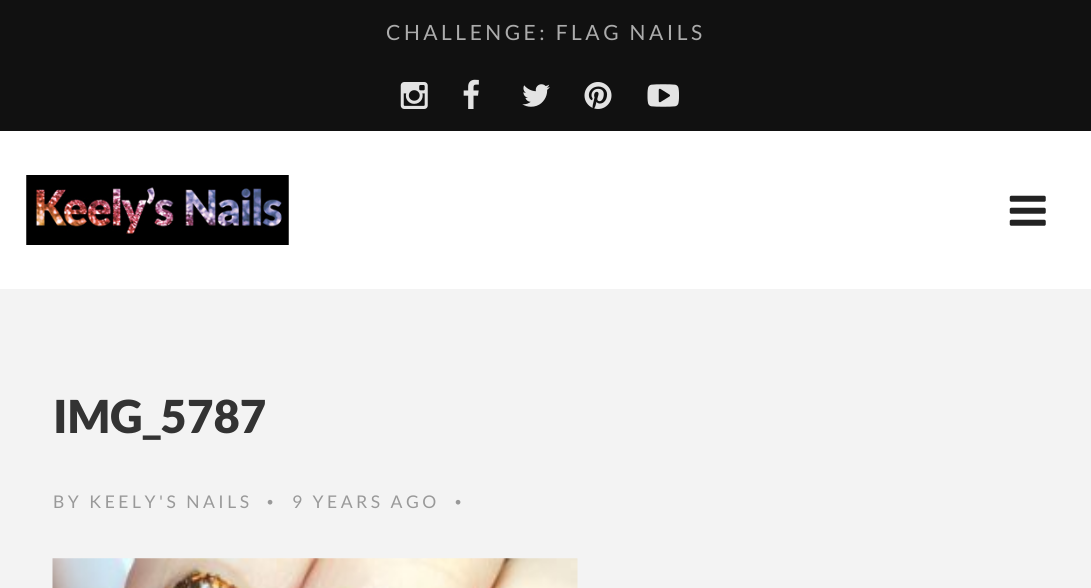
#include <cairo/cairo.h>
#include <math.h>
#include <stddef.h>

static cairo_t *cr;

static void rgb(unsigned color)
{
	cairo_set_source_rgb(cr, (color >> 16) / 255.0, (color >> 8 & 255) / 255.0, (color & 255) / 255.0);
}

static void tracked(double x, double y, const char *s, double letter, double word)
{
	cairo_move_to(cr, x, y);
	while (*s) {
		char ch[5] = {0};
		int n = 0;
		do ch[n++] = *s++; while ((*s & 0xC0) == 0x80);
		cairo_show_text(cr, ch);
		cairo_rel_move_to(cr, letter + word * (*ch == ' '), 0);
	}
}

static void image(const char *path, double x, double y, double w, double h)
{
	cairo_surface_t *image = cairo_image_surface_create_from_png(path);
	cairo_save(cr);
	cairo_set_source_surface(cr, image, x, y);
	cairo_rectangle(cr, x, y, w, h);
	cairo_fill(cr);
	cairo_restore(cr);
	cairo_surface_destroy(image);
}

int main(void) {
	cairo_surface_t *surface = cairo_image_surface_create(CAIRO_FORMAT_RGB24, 1091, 588);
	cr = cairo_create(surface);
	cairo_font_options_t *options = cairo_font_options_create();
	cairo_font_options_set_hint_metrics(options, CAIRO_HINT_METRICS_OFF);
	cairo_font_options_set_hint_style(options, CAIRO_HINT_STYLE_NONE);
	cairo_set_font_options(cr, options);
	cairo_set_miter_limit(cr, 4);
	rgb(0xffffff);
	cairo_paint(cr);
	rgb(0x111111);
	cairo_rectangle(cr, 0, 0, 1091, 131);
	cairo_fill(cr);
	image("img/1.png", 400, 82, 28, 27);
	image("img/2.png", 463, 79, 16, 30);
	image("img/3.png", 522, 84, 28, 23);
	image("img/4.png", 584, 82, 28, 27);
	image("img/5.png", 647, 84, 32, 23);
	image("img/6.png", 26, 175, 263, 70);
	image("img/7.png", 1009, 195, 37, 31);
	rgb(0xf3f3f3);
	cairo_rectangle(cr, 0, 289, 1091, 299);
	cairo_fill(cr);
	image("img/8.png", 52, 558, 526, 30);
	cairo_select_font_face(cr, "Lato", CAIRO_FONT_SLANT_NORMAL, CAIRO_FONT_WEIGHT_NORMAL);
	cairo_set_font_size(cr, 21);
	rgb(0xacacac);
	tracked(386, 40, "CHALLENGE: FLAG NAILS", 3.5, 0);
	cairo_select_font_face(cr, "Lato Black", CAIRO_FONT_SLANT_NORMAL, CAIRO_FONT_WEIGHT_NORMAL);
	cairo_set_font_size(cr, 45.5);
	rgb(0x333333);
	cairo_move_to(cr, 53, 433);
	cairo_show_text(cr, "IMG_5787");
	cairo_select_font_face(cr, "Lato", CAIRO_FONT_SLANT_NORMAL, CAIRO_FONT_WEIGHT_NORMAL);
	cairo_set_font_size(cr, 17.5);
	rgb(0x999999);
	tracked(53, 508, "BY KEELY'S NAILS", 3.5, 0);
	cairo_select_font_face(cr, "Liberation Sans", CAIRO_FONT_SLANT_NORMAL, CAIRO_FONT_WEIGHT_NORMAL);
	tracked(267, 508, "•", 3.5, 0);
	cairo_select_font_face(cr, "Lato", CAIRO_FONT_SLANT_NORMAL, CAIRO_FONT_WEIGHT_NORMAL);
	tracked(292, 508, "9 YEARS AGO", 3.5, 0);
	cairo_select_font_face(cr, "Liberation Sans", CAIRO_FONT_SLANT_NORMAL, CAIRO_FONT_WEIGHT_NORMAL);
	tracked(455, 508, "•", 3.5, 0);
	cairo_surface_write_to_png(surface, "page.png");
	cairo_font_options_destroy(options);
	cairo_destroy(cr);
	cairo_surface_destroy(surface);
	return 0;
}
